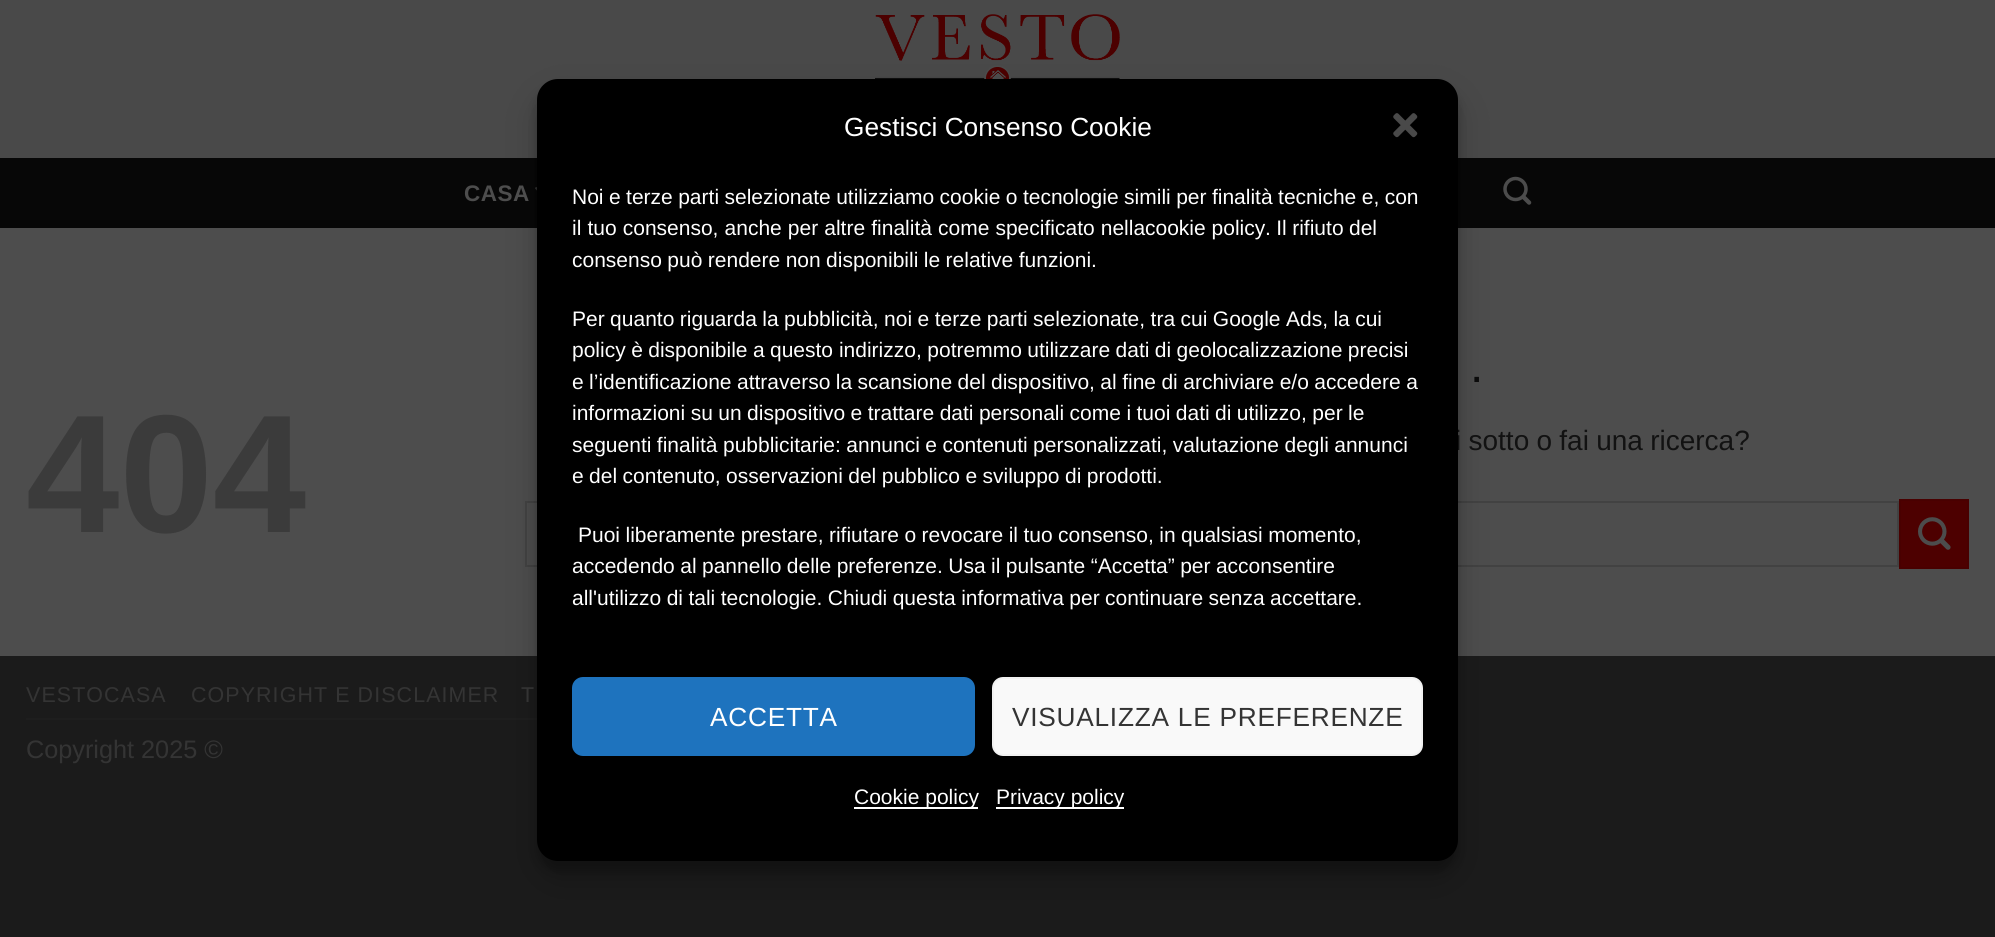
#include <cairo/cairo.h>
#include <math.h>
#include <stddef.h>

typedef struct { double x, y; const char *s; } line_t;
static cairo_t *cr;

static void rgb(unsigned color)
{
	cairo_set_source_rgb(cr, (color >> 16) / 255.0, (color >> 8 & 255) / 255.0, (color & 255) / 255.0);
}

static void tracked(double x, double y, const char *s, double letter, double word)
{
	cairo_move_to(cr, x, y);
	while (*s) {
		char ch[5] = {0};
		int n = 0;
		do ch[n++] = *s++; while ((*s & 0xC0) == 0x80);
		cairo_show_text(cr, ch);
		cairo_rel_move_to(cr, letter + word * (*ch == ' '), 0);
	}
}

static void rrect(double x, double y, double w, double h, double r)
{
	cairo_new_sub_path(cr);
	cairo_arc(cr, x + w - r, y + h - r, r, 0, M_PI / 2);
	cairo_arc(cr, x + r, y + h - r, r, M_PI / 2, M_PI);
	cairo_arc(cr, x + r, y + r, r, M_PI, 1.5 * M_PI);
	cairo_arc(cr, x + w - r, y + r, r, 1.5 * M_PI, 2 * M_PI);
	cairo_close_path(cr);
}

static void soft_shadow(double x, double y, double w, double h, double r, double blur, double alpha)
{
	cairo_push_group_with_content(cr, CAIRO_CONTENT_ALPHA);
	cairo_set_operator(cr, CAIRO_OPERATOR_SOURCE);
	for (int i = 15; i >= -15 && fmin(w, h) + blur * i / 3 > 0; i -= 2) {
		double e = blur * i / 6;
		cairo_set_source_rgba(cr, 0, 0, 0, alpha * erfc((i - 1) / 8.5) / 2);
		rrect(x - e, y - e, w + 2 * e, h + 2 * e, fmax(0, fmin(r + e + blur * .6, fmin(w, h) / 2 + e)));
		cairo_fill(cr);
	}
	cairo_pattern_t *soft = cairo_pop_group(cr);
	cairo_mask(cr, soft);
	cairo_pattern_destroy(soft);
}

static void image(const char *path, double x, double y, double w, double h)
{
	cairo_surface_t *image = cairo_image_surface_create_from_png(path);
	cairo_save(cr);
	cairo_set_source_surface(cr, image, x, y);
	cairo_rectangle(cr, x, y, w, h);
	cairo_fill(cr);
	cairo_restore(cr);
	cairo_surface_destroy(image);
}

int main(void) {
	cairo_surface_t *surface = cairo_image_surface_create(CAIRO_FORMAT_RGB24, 1995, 937);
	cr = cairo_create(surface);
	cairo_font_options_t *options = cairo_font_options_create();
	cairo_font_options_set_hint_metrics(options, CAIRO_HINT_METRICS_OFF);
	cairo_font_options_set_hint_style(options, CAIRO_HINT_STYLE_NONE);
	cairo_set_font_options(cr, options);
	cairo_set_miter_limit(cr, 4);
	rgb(0x1b1b1b);
	cairo_paint(cr);
	rgb(0x4d4d4d);
	cairo_rectangle(cr, 0, 228, 1995, 428);
	cairo_fill(cr);
	rgb(0x494949);
	cairo_rectangle(cr, 0, 0, 1995, 158);
	cairo_fill(cr);
	image("img/2.png", 875, 14, 245, 65);
	rgb(0x070707);
	cairo_rectangle(cr, 0, 158, 1995, 70);
	cairo_fill(cr);
	image("img/3.png", 535, 187, 2, 4);
	cairo_rectangle(cr, 526, 502, 1372, 64);
	rgb(0x424242);
	cairo_stroke(cr);
	rgb(0x1e1e1e);
	cairo_rectangle(cr, 26, 718, 511, 2);
	cairo_fill(cr);
	rgb(0x000000);
	soft_shadow(537, 89, 921, 783, 21, 5, 0.23);
	image("img/4.png", 1503, 176, 29, 29);
	soft_shadow(537, 96, 921, 783, 21, 17.5, 0.19);
	rgb(0x4d0000);
	cairo_rectangle(cr, 1900, 500, 68, 68);
	cairo_fill_preserve(cr);
	rgb(0x490000);
	cairo_stroke(cr);
	image("img/5.png", 1918, 517, 33, 33);
	cairo_select_font_face(cr, "Liberation Sans", CAIRO_FONT_SLANT_NORMAL, CAIRO_FONT_WEIGHT_BOLD);
	cairo_set_font_size(cr, 22.5);
	rgb(0x4d4d4d);
	tracked(464, 201, "CASA", 0.5, 0);
	cairo_set_font_size(cr, 168);
	rgb(0x3b3b3b);
	cairo_move_to(cr, 26, 532);
	cairo_show_text(cr, "404");
	cairo_select_font_face(cr, "Liberation Sans", CAIRO_FONT_SLANT_NORMAL, CAIRO_FONT_WEIGHT_NORMAL);
	cairo_set_font_size(cr, 48);
	rgb(0x0b0b0b);
	tracked(1470, 382, ".", 0, -1);
	cairo_set_font_size(cr, 28);
	rgb(0x121212);
	tracked(1455, 450, "i sotto o fai una ricerca?", 0, -0.5);
	rgb(0x000000);
	rrect(537, 79, 921, 782, 21);
	cairo_fill(cr);
	rgb(0xf9f9f9);
	rrect(993, 678, 429, 77, 10);
	cairo_fill_preserve(cr);
	rgb(0xf2f2f2);
	cairo_stroke(cr);
	cairo_set_font_size(cr, 26.25);
	rgb(0x343434);
	tracked(1012, 726, "VISUALIZZA LE PREFERENZE", 0.75, 0);
	rgb(0x1e73be);
	rrect(573, 678, 401, 77, 10);
	cairo_fill_preserve(cr);
	cairo_stroke(cr);
	rgb(0xffffff);
	tracked(710, 726, "ACCETTA", 0.75, 0);
	cairo_set_font_size(cr, 21);
	{
		static const line_t items[] = {
			{572, 605, "all'utilizzo di tali tecnologie. Chiudi questa informativa per continuare senza accettare."},
			{572, 573, "accedendo al pannello delle preferenze. Usa il pulsante “Accetta” per acconsentire"},
			{578, 542, "Puoi liberamente prestare, rifiutare o revocare il tuo consenso, in qualsiasi momento,"},
			{572, 483, "e del contenuto, osservazioni del pubblico e sviluppo di prodotti."},
			{572, 452, "seguenti finalità pubblicitarie: annunci e contenuti personalizzati, valutazione degli annunci"},
			{572, 420, "informazioni su un dispositivo e trattare dati personali come i tuoi dati di utilizzo, per le"},
			{572, 389, "e l’identificazione attraverso la scansione del dispositivo, al fine di archiviare e/o accedere a"},
			{916, 357, ", potremmo utilizzare dati di geolocalizzazione precisi"},
		};
		for (size_t i = 0; i < sizeof items / sizeof *items; i++) {
			tracked(items[i].x, items[i].y, items[i].s, 0, -0.4);
		}
	}
	cairo_move_to(cr, 770, 357);
	cairo_show_text(cr, "questo indirizzo");
	{
		static const line_t items[] = {
			{572, 357, "policy è disponibile a"},
			{572, 326, "Per quanto riguarda la pubblicità, noi e terze parti selezionate, tra cui Google Ads, la cui"},
			{572, 267, "consenso può rendere non disponibili le relative funzioni."},
			{1265, 235, ". Il rifiuto del"},
		};
		for (size_t i = 0; i < sizeof items / sizeof *items; i++) {
			tracked(items[i].x, items[i].y, items[i].s, 0, -0.4);
		}
	}
	cairo_move_to(cr, 1145, 235);
	cairo_show_text(cr, "cookie policy");
	tracked(572, 235, "il tuo consenso, anche per altre finalità come specificato nella", 0, 0.25);
	tracked(572, 204, "Noi e terze parti selezionate utilizziamo cookie o tecnologie simili per finalità tecniche e, con", 0, -0.4);
	image("img/1.png", 1393, 113, 25, 25);
	cairo_rectangle(cr, 996, 807, 128, 2);
	cairo_fill(cr);
	cairo_move_to(cr, 996, 804);
	cairo_show_text(cr, "Privacy policy");
	cairo_rectangle(cr, 854, 807, 124, 2);
	cairo_fill(cr);
	cairo_move_to(cr, 854, 804);
	cairo_show_text(cr, "Cookie policy");
	cairo_set_font_size(cr, 26.25);
	cairo_move_to(cr, 844, 136);
	cairo_show_text(cr, "Gestisci Consenso Cookie");
	cairo_set_font_size(cr, 21.4);
	rgb(0x343434);
	{
		static const line_t items[] = {
			{26, 702, "VESTOCASA"},
			{191, 702, "COPYRIGHT E DISCLAIMER"},
			{521, 702, "T"},
		};
		for (size_t i = 0; i < sizeof items / sizeof *items; i++) {
			tracked(items[i].x, items[i].y, items[i].s, 1.1, 0);
		}
	}
	cairo_set_font_size(cr, 25.25);
	cairo_move_to(cr, 26, 758);
	cairo_show_text(cr, "Copyright 2025 ©");
	cairo_surface_write_to_png(surface, "page.png");
	cairo_font_options_destroy(options);
	cairo_destroy(cr);
	cairo_surface_destroy(surface);
	return 0;
}
